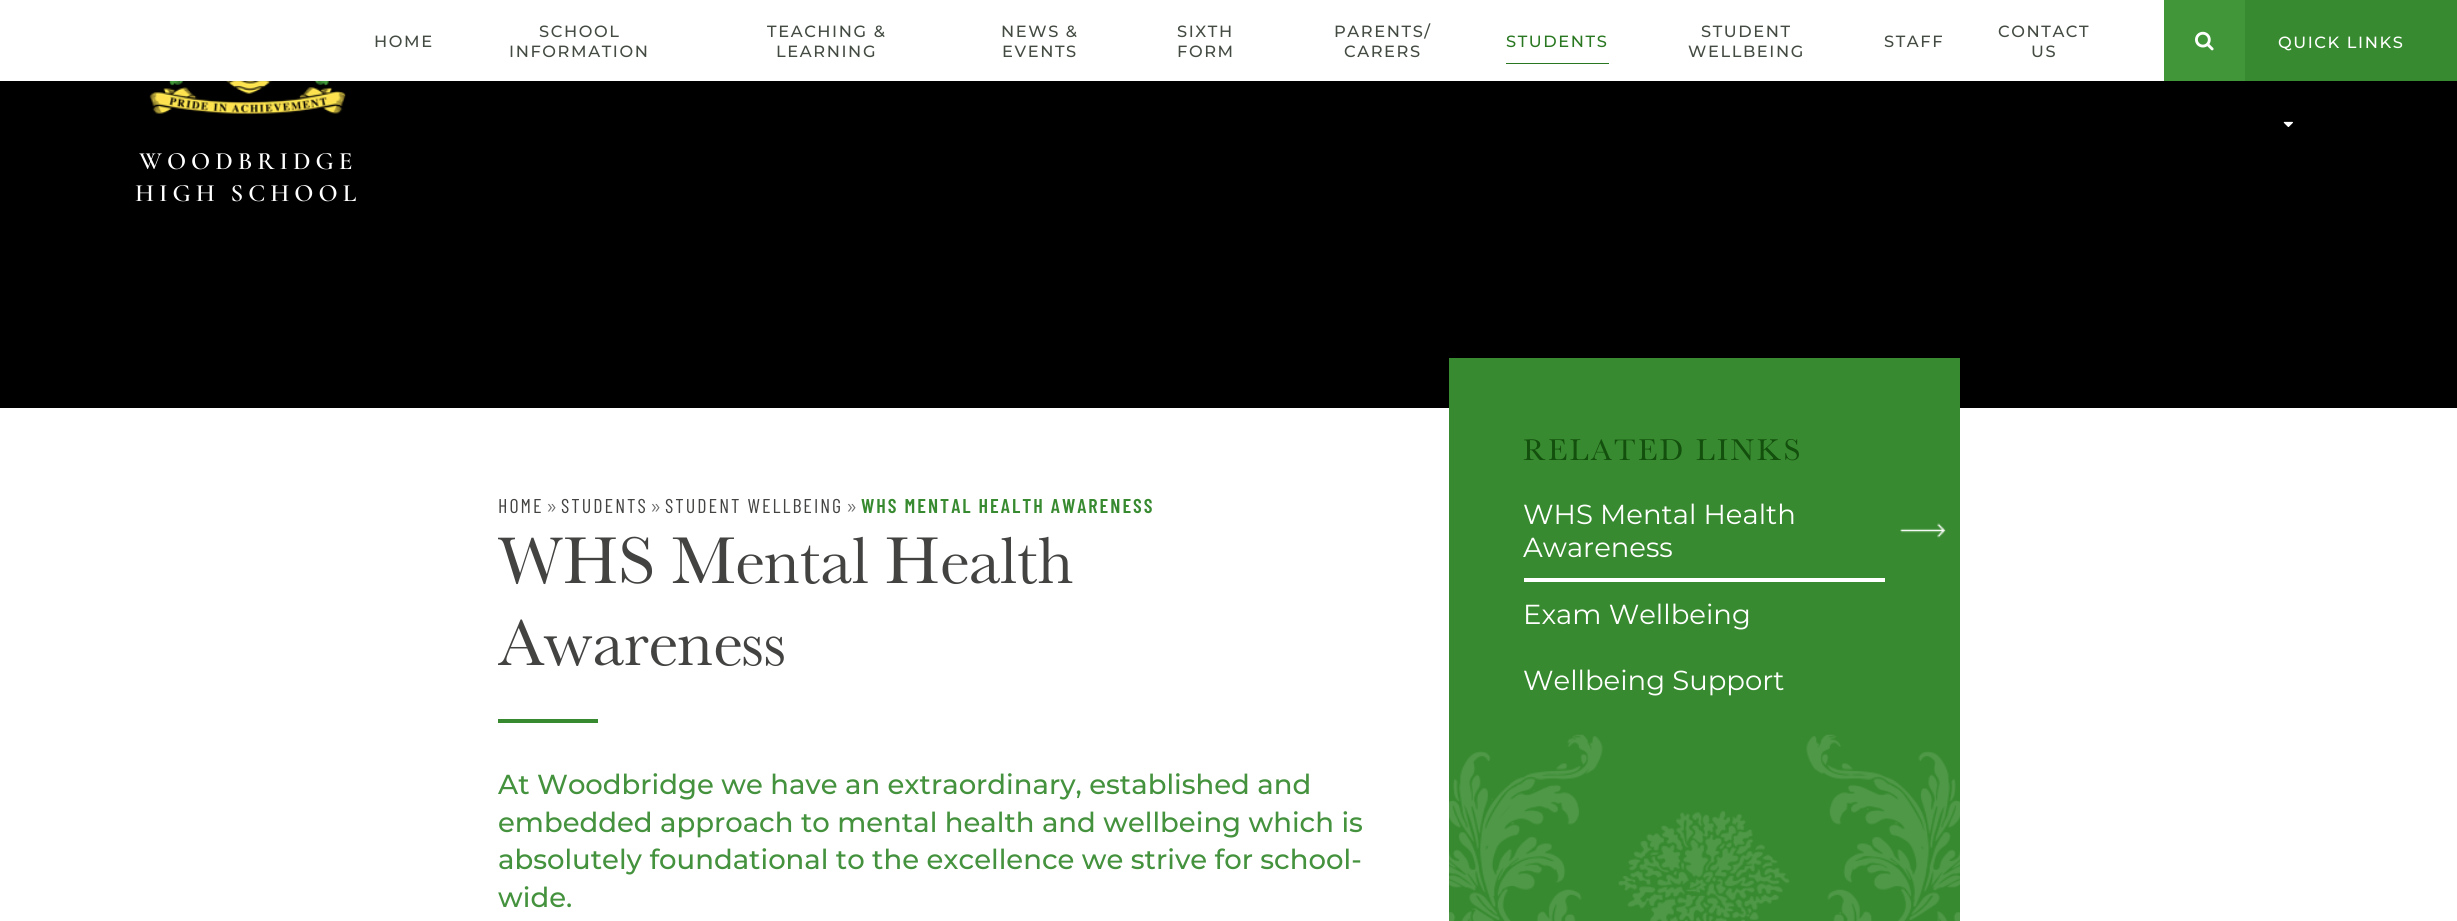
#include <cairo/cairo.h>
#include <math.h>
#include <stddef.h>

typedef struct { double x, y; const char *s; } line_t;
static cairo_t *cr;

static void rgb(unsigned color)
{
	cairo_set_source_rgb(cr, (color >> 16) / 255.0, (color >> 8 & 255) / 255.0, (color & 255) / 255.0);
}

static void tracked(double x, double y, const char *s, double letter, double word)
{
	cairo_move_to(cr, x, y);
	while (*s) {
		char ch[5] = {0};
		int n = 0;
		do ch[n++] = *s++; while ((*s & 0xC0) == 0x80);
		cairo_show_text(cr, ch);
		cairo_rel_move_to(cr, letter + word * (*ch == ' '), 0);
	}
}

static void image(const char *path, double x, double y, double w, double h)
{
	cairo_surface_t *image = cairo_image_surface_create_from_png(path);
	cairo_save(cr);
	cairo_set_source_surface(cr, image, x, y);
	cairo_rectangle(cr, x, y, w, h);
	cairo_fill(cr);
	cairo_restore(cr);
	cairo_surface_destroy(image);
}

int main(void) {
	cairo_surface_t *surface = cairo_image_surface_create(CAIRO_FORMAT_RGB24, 2457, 921);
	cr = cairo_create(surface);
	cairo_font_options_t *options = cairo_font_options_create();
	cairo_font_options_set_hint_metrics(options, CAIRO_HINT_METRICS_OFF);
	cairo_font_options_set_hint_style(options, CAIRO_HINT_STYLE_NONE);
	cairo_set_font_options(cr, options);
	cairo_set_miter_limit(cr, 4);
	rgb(0xffffff);
	cairo_paint(cr);
	rgb(0x297821);
	cairo_rectangle(cr, 1506, 63, 103, 1);
	cairo_fill(cr);
	rgb(0x419639);
	cairo_rectangle(cr, 2164, 0, 81, 81);
	cairo_fill(cr);
	image("img/1.png", 2195, 31, 19, 20);
	rgb(0x378a2f);
	cairo_rectangle(cr, 2245, 0, 212, 81);
	cairo_fill(cr);
	rgb(0x000000);
	cairo_rectangle(cr, 0, 81, 2457, 327);
	cairo_fill(cr);
	image("img/2.png", 2283, 121, 10, 6);
	image("img/3.png", 149, 81, 197, 34);
	rgb(0x378a2f);
	cairo_rectangle(cr, 498, 719, 100, 4);
	cairo_fill(cr);
	cairo_rectangle(cr, 1449, 358, 511, 563);
	cairo_fill(cr);
	image("img/4.png", 1449, 734, 511, 187);
	image("img/5.png", 1900, 523, 46, 15);
	rgb(0xffffff);
	cairo_rectangle(cr, 1524, 578, 361, 4);
	cairo_fill(cr);
	cairo_select_font_face(cr, "Montserrat Medium", CAIRO_FONT_SLANT_NORMAL, CAIRO_FONT_WEIGHT_NORMAL);
	cairo_set_font_size(cr, 16.25);
	rgb(0x434b42);
	{
		static const line_t items[] = {
			{374, 47, "HOME"},
			{539, 37, "SCHOOL"},
			{509, 57, "INFORMATION"},
			{767, 37, "TEACHING &"},
			{776, 57, "LEARNING"},
			{1001, 37, "NEWS &"},
			{1002, 57, "EVENTS"},
			{1177, 37, "SIXTH"},
			{1177, 57, "FORM"},
			{1334, 37, "PARENTS/"},
			{1344, 57, "CARERS"},
		};
		for (size_t i = 0; i < sizeof items / sizeof *items; i++) {
			tracked(items[i].x, items[i].y, items[i].s, 1.6, 0);
		}
	}
	rgb(0x297821);
	tracked(1506, 47, "STUDENTS", 1.6, 0);
	rgb(0x434b42);
	{
		static const line_t items[] = {
			{1701, 37, "STUDENT"},
			{1688, 57, "WELLBEING"},
			{1884, 47, "STAFF"},
			{1998, 37, "CONTACT"},
			{2031, 57, "US"},
		};
		for (size_t i = 0; i < sizeof items / sizeof *items; i++) {
			tracked(items[i].x, items[i].y, items[i].s, 1.6, 0);
		}
	}
	rgb(0xffffff);
	tracked(2278, 48, "QUICK LINKS", 1.6, 0);
	cairo_select_font_face(cr, "Cormorant Garamond SemiBold", CAIRO_FONT_SLANT_NORMAL, CAIRO_FONT_WEIGHT_NORMAL);
	cairo_set_font_size(cr, 25);
	tracked(139, 169, "WOODBRIDGE", 5, 0);
	tracked(135, 201, "HIGH SCHOOL", 5, 0);
	cairo_select_font_face(cr, "Barlow Condensed", CAIRO_FONT_SLANT_NORMAL, CAIRO_FONT_WEIGHT_NORMAL);
	cairo_set_font_size(cr, 20);
	rgb(0x434342);
	tracked(498, 513, "HOME", 2, 0);
	cairo_select_font_face(cr, "Montserrat", CAIRO_FONT_SLANT_NORMAL, CAIRO_FONT_WEIGHT_NORMAL);
	rgb(0x6a6a6a);
	cairo_move_to(cr, 547, 513);
	cairo_show_text(cr, "»");
	cairo_select_font_face(cr, "Barlow Condensed", CAIRO_FONT_SLANT_NORMAL, CAIRO_FONT_WEIGHT_NORMAL);
	rgb(0x434342);
	tracked(561, 513, "STUDENTS", 2, 0);
	cairo_select_font_face(cr, "Montserrat", CAIRO_FONT_SLANT_NORMAL, CAIRO_FONT_WEIGHT_NORMAL);
	rgb(0x6a6a6a);
	cairo_move_to(cr, 651, 513);
	cairo_show_text(cr, "»");
	cairo_select_font_face(cr, "Barlow Condensed", CAIRO_FONT_SLANT_NORMAL, CAIRO_FONT_WEIGHT_NORMAL);
	rgb(0x434342);
	tracked(665, 513, "STUDENT WELLBEING", 2, 0);
	cairo_select_font_face(cr, "Montserrat", CAIRO_FONT_SLANT_NORMAL, CAIRO_FONT_WEIGHT_NORMAL);
	rgb(0x6a6a6a);
	cairo_move_to(cr, 847, 513);
	cairo_show_text(cr, "»");
	cairo_select_font_face(cr, "Barlow Condensed SemiBold", CAIRO_FONT_SLANT_NORMAL, CAIRO_FONT_WEIGHT_NORMAL);
	rgb(0x378a2f);
	tracked(861, 513, "WHS MENTAL HEALTH AWARENESS", 2, 0);
	cairo_select_font_face(cr, "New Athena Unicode", CAIRO_FONT_SLANT_NORMAL, CAIRO_FONT_WEIGHT_NORMAL);
	cairo_set_font_size(cr, 68.75);
	rgb(0x434342);
	cairo_move_to(cr, 498, 583);
	cairo_show_text(cr, "WHS Mental Health");
	cairo_move_to(cr, 498, 665);
	cairo_show_text(cr, "Awareness");
	cairo_select_font_face(cr, "Montserrat Medium", CAIRO_FONT_SLANT_NORMAL, CAIRO_FONT_WEIGHT_NORMAL);
	cairo_set_font_size(cr, 27.5);
	rgb(0x44923d);
	{
		static const line_t items[] = {
			{498, 794, "At Woodbridge we have an extraordinary, established and"},
			{498, 832, "embedded approach to mental health and wellbeing which is"},
			{498, 869, "absolutely foundational to the excellence we strive for school-"},
			{498, 907, "wide."},
		};
		for (size_t i = 0; i < sizeof items / sizeof *items; i++) {
			cairo_move_to(cr, items[i].x, items[i].y);
			cairo_show_text(cr, items[i].s);
		}
	}
	cairo_select_font_face(cr, "New Athena Unicode", CAIRO_FONT_SLANT_NORMAL, CAIRO_FONT_WEIGHT_NORMAL);
	cairo_set_font_size(cr, 31.25);
	rgb(0x134f0d);
	tracked(1523, 460, "RELATED LINKS", 2.5, 0);
	cairo_select_font_face(cr, "Montserrat", CAIRO_FONT_SLANT_NORMAL, CAIRO_FONT_WEIGHT_NORMAL);
	cairo_set_font_size(cr, 27.5);
	rgb(0xffffff);
	{
		static const line_t items[] = {
			{1523, 524, "WHS Mental Health"},
			{1523, 557, "Awareness"},
			{1523, 624, "Exam Wellbeing"},
			{1523, 690, "Wellbeing Support"},
		};
		for (size_t i = 0; i < sizeof items / sizeof *items; i++) {
			cairo_move_to(cr, items[i].x, items[i].y);
			cairo_show_text(cr, items[i].s);
		}
	}
	cairo_surface_write_to_png(surface, "page.png");
	cairo_font_options_destroy(options);
	cairo_destroy(cr);
	cairo_surface_destroy(surface);
	return 0;
}
